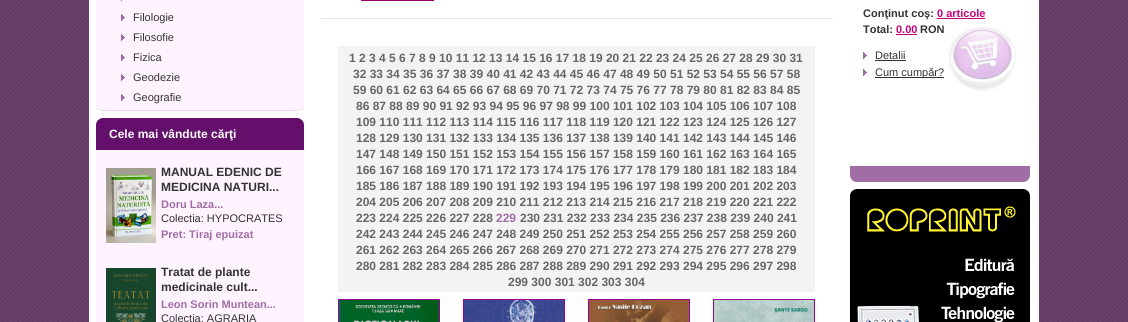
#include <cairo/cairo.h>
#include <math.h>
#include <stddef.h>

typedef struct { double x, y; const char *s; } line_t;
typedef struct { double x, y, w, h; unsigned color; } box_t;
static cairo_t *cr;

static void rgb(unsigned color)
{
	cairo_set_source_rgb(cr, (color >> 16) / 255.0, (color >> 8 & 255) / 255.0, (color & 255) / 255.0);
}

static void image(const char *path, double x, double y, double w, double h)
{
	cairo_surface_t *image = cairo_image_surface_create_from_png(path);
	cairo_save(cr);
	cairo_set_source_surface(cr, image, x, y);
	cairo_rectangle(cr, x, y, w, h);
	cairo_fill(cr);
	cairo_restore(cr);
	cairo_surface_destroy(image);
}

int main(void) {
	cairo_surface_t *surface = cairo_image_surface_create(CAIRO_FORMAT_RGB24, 1128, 322);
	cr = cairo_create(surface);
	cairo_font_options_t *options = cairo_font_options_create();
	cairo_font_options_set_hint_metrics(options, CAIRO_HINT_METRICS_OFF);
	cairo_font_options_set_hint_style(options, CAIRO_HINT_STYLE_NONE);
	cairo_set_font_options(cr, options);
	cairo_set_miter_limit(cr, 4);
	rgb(0xffffff);
	cairo_paint(cr);
	image("img/1.png", 0, 0, 1128, 322);
	{
		static const box_t items[] = {
			{89, 0, 950, 322, 0xffffff},
			{96, 0, 208, 105, 0xfef3ff},
			{121, 0, 1, 1, 0xa16da6},
		};
		for (size_t i = 0; i < sizeof items / sizeof *items; i++) {
			rgb(items[i].color);
			cairo_rectangle(cr, items[i].x, items[i].y, items[i].w, items[i].h);
			cairo_fill(cr);
		}
	}
	image("img/2.png", 121, 14, 4, 7);
	image("img/2.png", 121, 34, 4, 7);
	image("img/2.png", 121, 54, 4, 7);
	image("img/2.png", 121, 74, 4, 7);
	image("img/2.png", 121, 94, 4, 7);
	image("img/3.png", 96, 105, 208, 6);
	image("img/4.png", 96, 118, 208, 32);
	rgb(0xfef3ff);
	cairo_rectangle(cr, 96, 150, 208, 172);
	cairo_fill(cr);
	image("img/5.png", 106, 168, 50, 75);
	image("img/6.png", 106, 268, 50, 54);
	{
		static const box_t items[] = {
			{361, 0, 73, 1, 0x990066},
			{321, 18, 512, 1, 0xe3e3e3},
			{338, 46, 477, 246, 0xf3f3f3},
		};
		for (size_t i = 0; i < sizeof items / sizeof *items; i++) {
			rgb(items[i].color);
			cairo_rectangle(cr, items[i].x, items[i].y, items[i].w, items[i].h);
			cairo_fill(cr);
		}
	}
	cairo_rectangle(cr, 338.5, 299.5, 101, 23);
	rgb(0x990099);
	cairo_set_line_width(cr, 1);
	cairo_stroke(cr);
	image("img/7.png", 339, 300, 100, 22);
	cairo_rectangle(cr, 463.5, 299.5, 101, 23);
	cairo_stroke(cr);
	image("img/8.png", 464, 300, 100, 22);
	cairo_rectangle(cr, 588.5, 299.5, 101, 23);
	cairo_stroke(cr);
	image("img/9.png", 589, 300, 100, 22);
	cairo_rectangle(cr, 713.5, 299.5, 101, 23);
	cairo_stroke(cr);
	image("img/10.png", 714, 300, 100, 22);
	image("img/11.png", 948, 27, 68, 64);
	rgb(0xc8007c);
	cairo_rectangle(cr, 937, 18, 48, 1);
	cairo_fill(cr);
	cairo_rectangle(cr, 896, 34, 21, 1);
	cairo_fill(cr);
	image("img/12.png", 863, 52, 4, 7);
	rgb(0x333333);
	cairo_rectangle(cr, 875, 60, 31, 1);
	cairo_fill(cr);
	image("img/12.png", 863, 69, 4, 7);
	cairo_rectangle(cr, 875, 77, 69, 1);
	cairo_fill(cr);
	image("img/13.png", 850, 166, 180, 16);
	image("img/14.png", 850, 189, 180, 133);
	cairo_select_font_face(cr, "Liberation Sans", CAIRO_FONT_SLANT_NORMAL, CAIRO_FONT_WEIGHT_NORMAL);
	cairo_set_font_size(cr, 11);
	{
		static const line_t items[] = {
			{133, 21, "Filologie"},
			{133, 41, "Filosofie"},
			{133, 61, "Fizica"},
			{133, 81, "Geodezie"},
			{133, 101, "Geografie"},
		};
		for (size_t i = 0; i < sizeof items / sizeof *items; i++) {
			cairo_move_to(cr, items[i].x, items[i].y);
			cairo_show_text(cr, items[i].s);
		}
	}
	cairo_select_font_face(cr, "Liberation Sans", CAIRO_FONT_SLANT_NORMAL, CAIRO_FONT_WEIGHT_BOLD);
	cairo_set_font_size(cr, 12);
	rgb(0xffffff);
	cairo_move_to(cr, 109, 138);
	cairo_show_text(cr, "Cele mai vândute cărţi");
	rgb(0x333333);
	cairo_move_to(cr, 161, 176);
	cairo_show_text(cr, "MANUAL EDENIC DE");
	cairo_move_to(cr, 161, 191);
	cairo_show_text(cr, "MEDICINA NATURI...");
	cairo_set_font_size(cr, 11);
	rgb(0xa16da6);
	cairo_move_to(cr, 161, 208);
	cairo_show_text(cr, "Doru Laza...");
	cairo_select_font_face(cr, "Liberation Sans", CAIRO_FONT_SLANT_NORMAL, CAIRO_FONT_WEIGHT_NORMAL);
	rgb(0x333333);
	cairo_move_to(cr, 161, 222);
	cairo_show_text(cr, "Colectia: HYPOCRATES");
	cairo_select_font_face(cr, "Liberation Sans", CAIRO_FONT_SLANT_NORMAL, CAIRO_FONT_WEIGHT_BOLD);
	rgb(0xa16da6);
	cairo_move_to(cr, 161, 238);
	cairo_show_text(cr, "Pret: Tiraj epuizat");
	cairo_set_font_size(cr, 12);
	rgb(0x333333);
	cairo_move_to(cr, 161, 276);
	cairo_show_text(cr, "Tratat de plante");
	cairo_move_to(cr, 161, 291);
	cairo_show_text(cr, "medicinale cult...");
	cairo_set_font_size(cr, 11);
	rgb(0xa16da6);
	cairo_move_to(cr, 161, 308);
	cairo_show_text(cr, "Leon Sorin Muntean...");
	cairo_select_font_face(cr, "Liberation Sans", CAIRO_FONT_SLANT_NORMAL, CAIRO_FONT_WEIGHT_NORMAL);
	rgb(0x333333);
	cairo_move_to(cr, 161, 322);
	cairo_show_text(cr, "Colectia: AGRARIA");
	cairo_select_font_face(cr, "Liberation Sans", CAIRO_FONT_SLANT_NORMAL, CAIRO_FONT_WEIGHT_BOLD);
	cairo_set_font_size(cr, 12);
	rgb(0x666666);
	{
		static const line_t items[] = {
			{349, 62, "1 2 3 4 5 6 7 8 9 10 11 12 13 14 15 16 17 18 19 20 21 22 23 24 25 26 27 28 29 30 31"},
			{353, 78, "32 33 34 35 36 37 38 39 40 41 42 43 44 45 46 47 48 49 50 51 52 53 54 55 56 57 58"},
			{353, 94, "59 60 61 62 63 64 65 66 67 68 69 70 71 72 73 74 75 76 77 78 79 80 81 82 83 84 85"},
			{356, 110, "86 87 88 89 90 91 92 93 94 95 96 97 98 99 100 101 102 103 104 105 106 107 108"},
			{356, 126, "109 110 111 112 113 114 115 116 117 118 119 120 121 122 123 124 125 126 127"},
			{356, 142, "128 129 130 131 132 133 134 135 136 137 138 139 140 141 142 143 144 145 146"},
			{356, 158, "147 148 149 150 151 152 153 154 155 156 157 158 159 160 161 162 163 164 165"},
			{356, 174, "166 167 168 169 170 171 172 173 174 175 176 177 178 179 180 181 182 183 184"},
			{356, 190, "185 186 187 188 189 190 191 192 193 194 195 196 197 198 199 200 201 202 203"},
			{356, 206, "204 205 206 207 208 209 210 211 212 213 214 215 216 217 218 219 220 221 222"},
			{356, 222, "223 224 225 226 227 228"},
		};
		for (size_t i = 0; i < sizeof items / sizeof *items; i++) {
			cairo_move_to(cr, items[i].x, items[i].y);
			cairo_show_text(cr, items[i].s);
		}
	}
	rgb(0xa16da6);
	cairo_move_to(cr, 496, 222);
	cairo_show_text(cr, "229");
	rgb(0x666666);
	{
		static const line_t items[] = {
			{520, 222, "230 231 232 233 234 235 236 237 238 239 240 241"},
			{356, 238, "242 243 244 245 246 247 248 249 250 251 252 253 254 255 256 257 258 259 260"},
			{356, 254, "261 262 263 264 265 266 267 268 269 270 271 272 273 274 275 276 277 278 279"},
			{356, 270, "280 281 282 283 284 285 286 287 288 289 290 291 292 293 294 295 296 297 298"},
			{508, 286, "299 300 301 302 303 304"},
		};
		for (size_t i = 0; i < sizeof items / sizeof *items; i++) {
			cairo_move_to(cr, items[i].x, items[i].y);
			cairo_show_text(cr, items[i].s);
		}
	}
	cairo_set_font_size(cr, 11);
	rgb(0x333333);
	cairo_move_to(cr, 863, 17);
	cairo_show_text(cr, "Conţinut coş:");
	rgb(0xc8007c);
	cairo_move_to(cr, 937, 17);
	cairo_show_text(cr, "0 articole");
	rgb(0x333333);
	cairo_move_to(cr, 863, 33);
	cairo_show_text(cr, "Total:");
	rgb(0xc8007c);
	cairo_move_to(cr, 896, 33);
	cairo_show_text(cr, "0.00");
	rgb(0x333333);
	cairo_move_to(cr, 920, 33);
	cairo_show_text(cr, "RON");
	cairo_select_font_face(cr, "Liberation Sans", CAIRO_FONT_SLANT_NORMAL, CAIRO_FONT_WEIGHT_NORMAL);
	cairo_move_to(cr, 875, 59);
	cairo_show_text(cr, "Detalii");
	cairo_move_to(cr, 875, 76);
	cairo_show_text(cr, "Cum cumpăr?");
	cairo_surface_write_to_png(surface, "page.png");
	cairo_font_options_destroy(options);
	cairo_destroy(cr);
	cairo_surface_destroy(surface);
	return 0;
}
